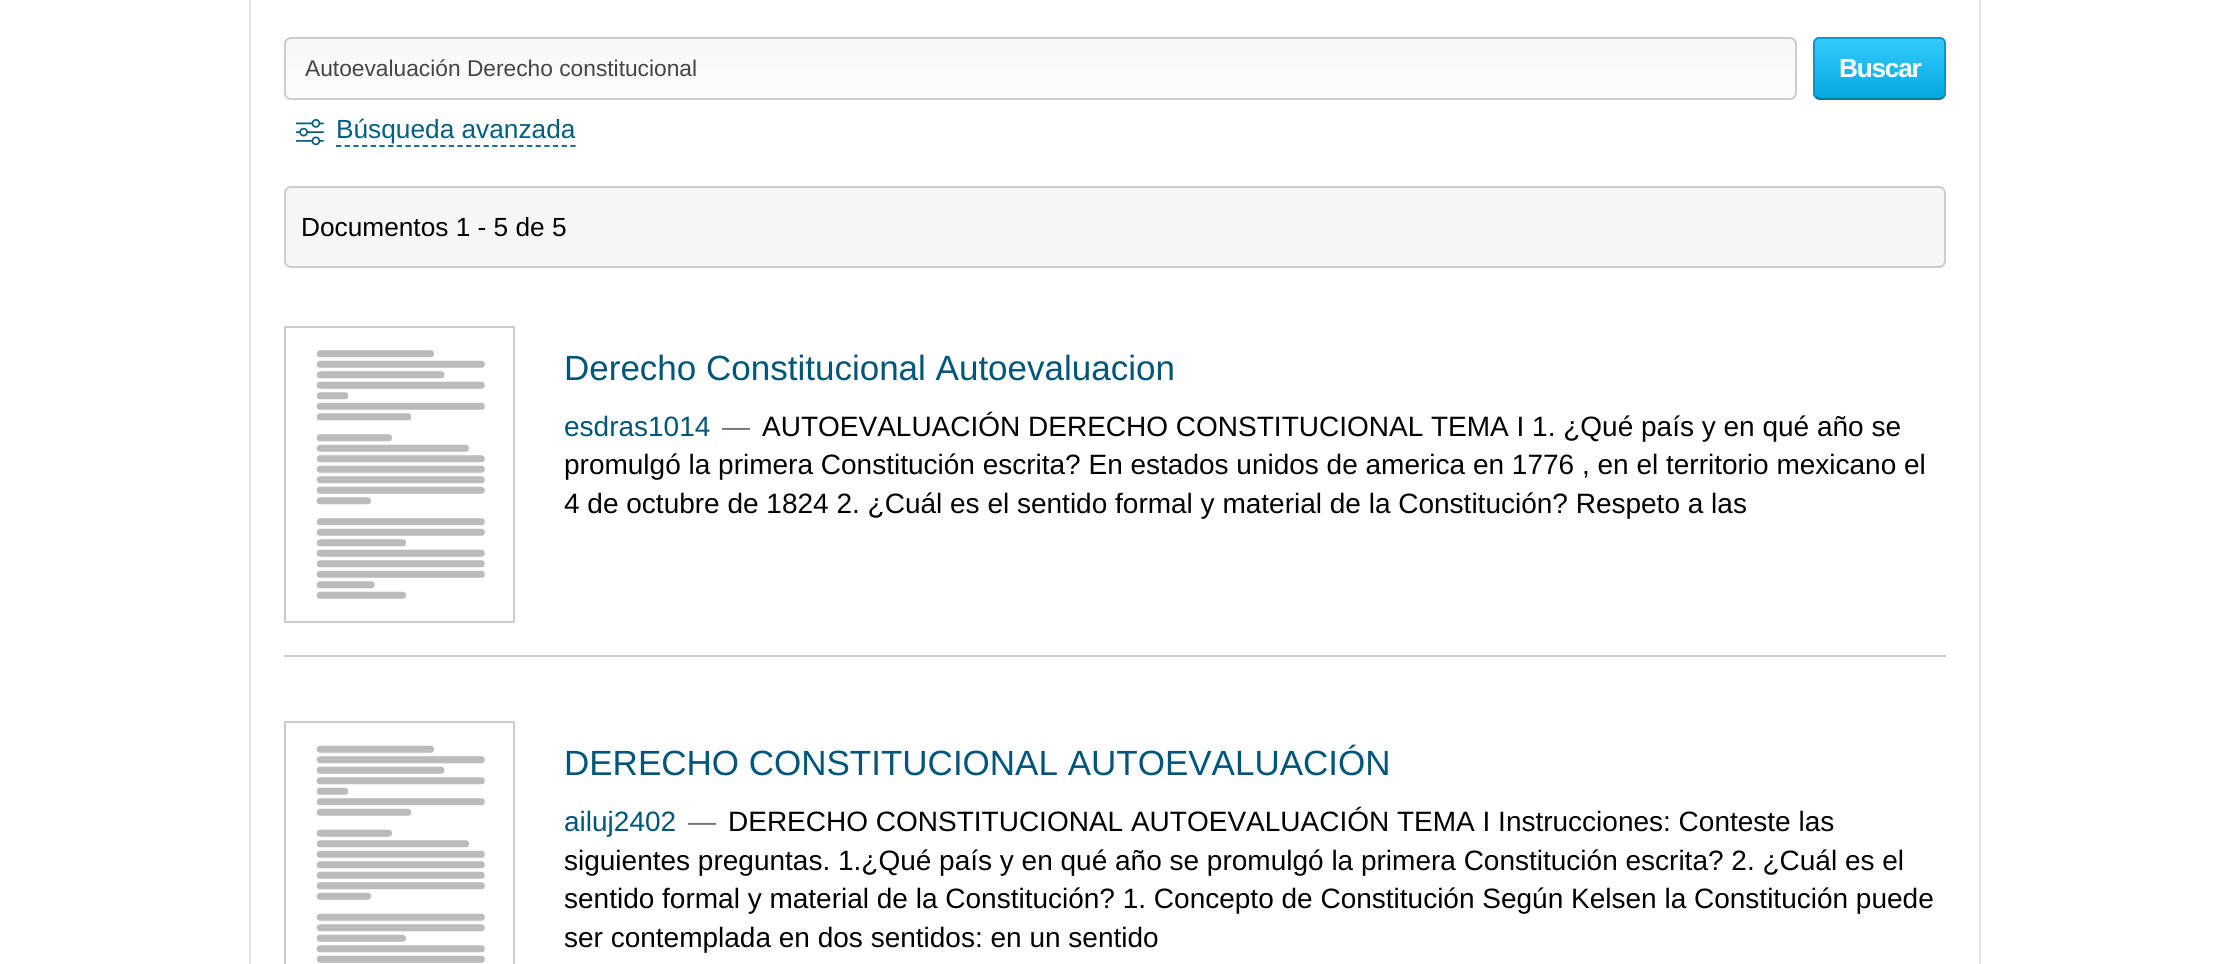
#include <cairo/cairo.h>
#include <math.h>
#include <stddef.h>

typedef struct { double x, y; const char *s; } line_t;
static cairo_t *cr;

static void rgb(unsigned color)
{
	cairo_set_source_rgb(cr, (color >> 16) / 255.0, (color >> 8 & 255) / 255.0, (color & 255) / 255.0);
}

static void tracked(double x, double y, const char *s, double letter, double word)
{
	cairo_move_to(cr, x, y);
	while (*s) {
		char ch[5] = {0};
		int n = 0;
		do ch[n++] = *s++; while ((*s & 0xC0) == 0x80);
		cairo_show_text(cr, ch);
		cairo_rel_move_to(cr, letter + word * (*ch == ' '), 0);
	}
}

static void rrect(double x, double y, double w, double h, double r)
{
	cairo_new_sub_path(cr);
	cairo_arc(cr, x + w - r, y + h - r, r, 0, M_PI / 2);
	cairo_arc(cr, x + r, y + h - r, r, M_PI / 2, M_PI);
	cairo_arc(cr, x + r, y + r, r, M_PI, 1.5 * M_PI);
	cairo_arc(cr, x + w - r, y + r, r, 1.5 * M_PI, 2 * M_PI);
	cairo_close_path(cr);
}

static void image(const char *path, double x, double y, double w, double h)
{
	cairo_surface_t *image = cairo_image_surface_create_from_png(path);
	cairo_save(cr);
	cairo_set_source_surface(cr, image, x, y);
	cairo_rectangle(cr, x, y, w, h);
	cairo_fill(cr);
	cairo_restore(cr);
	cairo_surface_destroy(image);
}

int main(void) {
	cairo_surface_t *surface = cairo_image_surface_create(CAIRO_FORMAT_RGB24, 2228, 964);
	cr = cairo_create(surface);
	cairo_font_options_t *options = cairo_font_options_create();
	cairo_font_options_set_hint_metrics(options, CAIRO_HINT_METRICS_OFF);
	cairo_font_options_set_hint_style(options, CAIRO_HINT_STYLE_NONE);
	cairo_set_font_options(cr, options);
	cairo_set_miter_limit(cr, 4);
	cairo_pattern_t *gradient;
	rgb(0xffffff);
	cairo_paint(cr);
	cairo_rectangle(cr, 250, -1, 1730, 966);
	rgb(0xe4e4e4);
	cairo_stroke(cr);
	cairo_save(cr);
	rrect(284, 37, 1513, 63, 7);
	cairo_clip(cr);
	gradient = cairo_pattern_create_linear(1040, 38, 1040, 98);
	cairo_pattern_add_color_stop_rgba(gradient, 0, 0.969, 0.969, 0.969, 1);
	cairo_pattern_add_color_stop_rgba(gradient, 1, 0.988, 0.988, 0.988, 1);
	cairo_set_source(cr, gradient);
	cairo_pattern_destroy(gradient);
	cairo_rectangle(cr, 284, 39, 1513, 59);
	cairo_fill(cr);
	cairo_restore(cr);
	rrect(285, 38, 1511, 61, 6);
	rgb(0xcccccc);
	cairo_stroke(cr);
	cairo_save(cr);
	rrect(1813, 37, 133, 63, 7);
	cairo_clip(cr);
	gradient = cairo_pattern_create_linear(1880, -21, 1880, 39);
	cairo_pattern_add_color_stop_rgba(gradient, 0, 0.212, 0.8, 0.996, 1);
	cairo_pattern_add_color_stop_rgba(gradient, 1, 0.008, 0.659, 0.875, 1);
	cairo_set_source(cr, gradient);
	cairo_pattern_destroy(gradient);
	cairo_rectangle(cr, 1813, 37, 133, 2);
	cairo_fill(cr);
	gradient = cairo_pattern_create_linear(1880, 38, 1880, 98);
	cairo_pattern_add_color_stop_rgba(gradient, 0, 0.212, 0.8, 0.996, 1);
	cairo_pattern_add_color_stop_rgba(gradient, 1, 0.008, 0.659, 0.875, 1);
	cairo_set_source(cr, gradient);
	cairo_pattern_destroy(gradient);
	cairo_rectangle(cr, 1813, 39, 133, 59);
	cairo_fill(cr);
	gradient = cairo_pattern_create_linear(1880, 98, 1880, 158);
	cairo_pattern_add_color_stop_rgba(gradient, 0, 0.212, 0.8, 0.996, 1);
	cairo_pattern_add_color_stop_rgba(gradient, 1, 0.008, 0.659, 0.875, 1);
	cairo_set_source(cr, gradient);
	cairo_pattern_destroy(gradient);
	cairo_rectangle(cr, 1813, 98, 133, 2);
	cairo_fill(cr);
	cairo_restore(cr);
	cairo_new_path(cr);
	cairo_move_to(cr, 1943.5, 97);
	cairo_curve_to(cr, 1942, 98, 1940.5, 99, 1939, 99);
	cairo_line_to(cr, 1820, 99);
	cairo_curve_to(cr, 1818.5, 99, 1817, 98, 1815.5, 97);
	rgb(0x006e92);
	cairo_set_line_width(cr, 1.8);
	cairo_stroke(cr);
	cairo_save(cr);
	cairo_rectangle(cr, 284, 37, 1662, 63);
	cairo_clip(cr);
	cairo_new_path(cr);
	cairo_move_to(cr, 1815.5, 97);
	cairo_curve_to(cr, 1814.5, 96, 1814, 94.5, 1814, 93);
	cairo_line_to(cr, 1814, 44);
	cairo_curve_to(cr, 1814, 42, 1814.5, 40.5, 1815.5, 39.5);
	cairo_curve_to(cr, 1817, 38.5, 1818.5, 37.5, 1820, 37.5);
	cairo_line_to(cr, 1939, 37.5);
	cairo_curve_to(cr, 1940.5, 37.5, 1942, 38.5, 1943.5, 39.5);
	cairo_curve_to(cr, 1944.5, 40.5, 1945, 42, 1945, 44);
	cairo_line_to(cr, 1945, 93);
	cairo_curve_to(cr, 1945, 94.5, 1944.5, 96, 1943.5, 97);
	rgb(0x0094c5);
	cairo_stroke(cr);
	cairo_restore(cr);
	image("img/1.png", 296, 119, 28, 26);
	cairo_new_path(cr);
	cairo_move_to(cr, 336, 146);
	cairo_line_to(cr, 576, 146);
	rgb(0x025f7f);
	cairo_set_dash(cr, (double[]){5.25, 3.43}, 2, 0);
	cairo_stroke(cr);
	rgb(0xf6f6f6);
	rrect(285, 187, 1660, 80, 6);
	cairo_fill_preserve(cr);
	rgb(0xcccccc);
	cairo_set_line_width(cr, 2);
	cairo_set_dash(cr, NULL, 0, 0);
	cairo_stroke(cr);
	image("img/2.png", 316, 350, 169, 249);
	cairo_rectangle(cr, 285, 327, 229, 295);
	cairo_stroke(cr);
	cairo_rectangle(cr, 284, 655, 1662, 2);
	cairo_fill(cr);
	image("img/3.png", 316, 745, 169, 218);
	cairo_rectangle(cr, 285, 722, 229, 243);
	cairo_stroke(cr);
	cairo_select_font_face(cr, "Liberation Sans", CAIRO_FONT_SLANT_NORMAL, CAIRO_FONT_WEIGHT_NORMAL);
	cairo_set_font_size(cr, 22.75);
	rgb(0x444444);
	cairo_move_to(cr, 305, 76);
	cairo_show_text(cr, "Autoevaluación Derecho constitucional");
	cairo_select_font_face(cr, "Liberation Sans", CAIRO_FONT_SLANT_NORMAL, CAIRO_FONT_WEIGHT_BOLD);
	cairo_set_font_size(cr, 26.25);
	rgb(0xffffff);
	tracked(1839, 77, "Buscar", -1.25, 0);
	cairo_select_font_face(cr, "Liberation Sans", CAIRO_FONT_SLANT_NORMAL, CAIRO_FONT_WEIGHT_NORMAL);
	rgb(0x025f7f);
	cairo_move_to(cr, 336, 138);
	cairo_show_text(cr, "Búsqueda avanzada");
	rgb(0x000000);
	cairo_move_to(cr, 301, 236);
	cairo_show_text(cr, "Documentos 1 - 5 de 5");
	cairo_set_font_size(cr, 35);
	rgb(0x00557a);
	cairo_move_to(cr, 564, 380);
	cairo_show_text(cr, "Derecho Constitucional Autoevaluacion");
	cairo_set_font_size(cr, 28);
	cairo_move_to(cr, 564, 436);
	cairo_show_text(cr, "esdras1014");
	rgb(0x707070);
	cairo_move_to(cr, 722, 436);
	cairo_show_text(cr, "—");
	rgb(0x000000);
	{
		static const line_t items[] = {
			{762, 436, "AUTOEVALUACIÓN DERECHO CONSTITUCIONAL TEMA I 1. ¿Qué país y en qué año se"},
			{564, 474, "promulgó la primera Constitución escrita? En estados unidos de america en 1776 , en el territorio mexicano el"},
			{564, 513, "4 de octubre de 1824 2. ¿Cuál es el sentido formal y material de la Constitución? Respeto a las"},
		};
		for (size_t i = 0; i < sizeof items / sizeof *items; i++) {
			cairo_move_to(cr, items[i].x, items[i].y);
			cairo_show_text(cr, items[i].s);
		}
	}
	cairo_set_font_size(cr, 35);
	rgb(0x00557a);
	cairo_move_to(cr, 564, 775);
	cairo_show_text(cr, "DERECHO CONSTITUCIONAL AUTOEVALUACIÓN");
	cairo_set_font_size(cr, 28);
	cairo_move_to(cr, 564, 831);
	cairo_show_text(cr, "ailuj2402");
	rgb(0x707070);
	cairo_move_to(cr, 688, 831);
	cairo_show_text(cr, "—");
	rgb(0x000000);
	{
		static const line_t items[] = {
			{728, 831, "DERECHO CONSTITUCIONAL AUTOEVALUACIÓN TEMA I Instrucciones: Conteste las"},
			{564, 870, "siguientes preguntas. 1.¿Qué país y en qué año se promulgó la primera Constitución escrita? 2. ¿Cuál es el"},
			{564, 908, "sentido formal y material de la Constitución? 1. Concepto de Constitución Según Kelsen la Constitución puede"},
			{564, 947, "ser contemplada en dos sentidos: en un sentido"},
		};
		for (size_t i = 0; i < sizeof items / sizeof *items; i++) {
			cairo_move_to(cr, items[i].x, items[i].y);
			cairo_show_text(cr, items[i].s);
		}
	}
	cairo_surface_write_to_png(surface, "page.png");
	cairo_font_options_destroy(options);
	cairo_destroy(cr);
	cairo_surface_destroy(surface);
	return 0;
}
